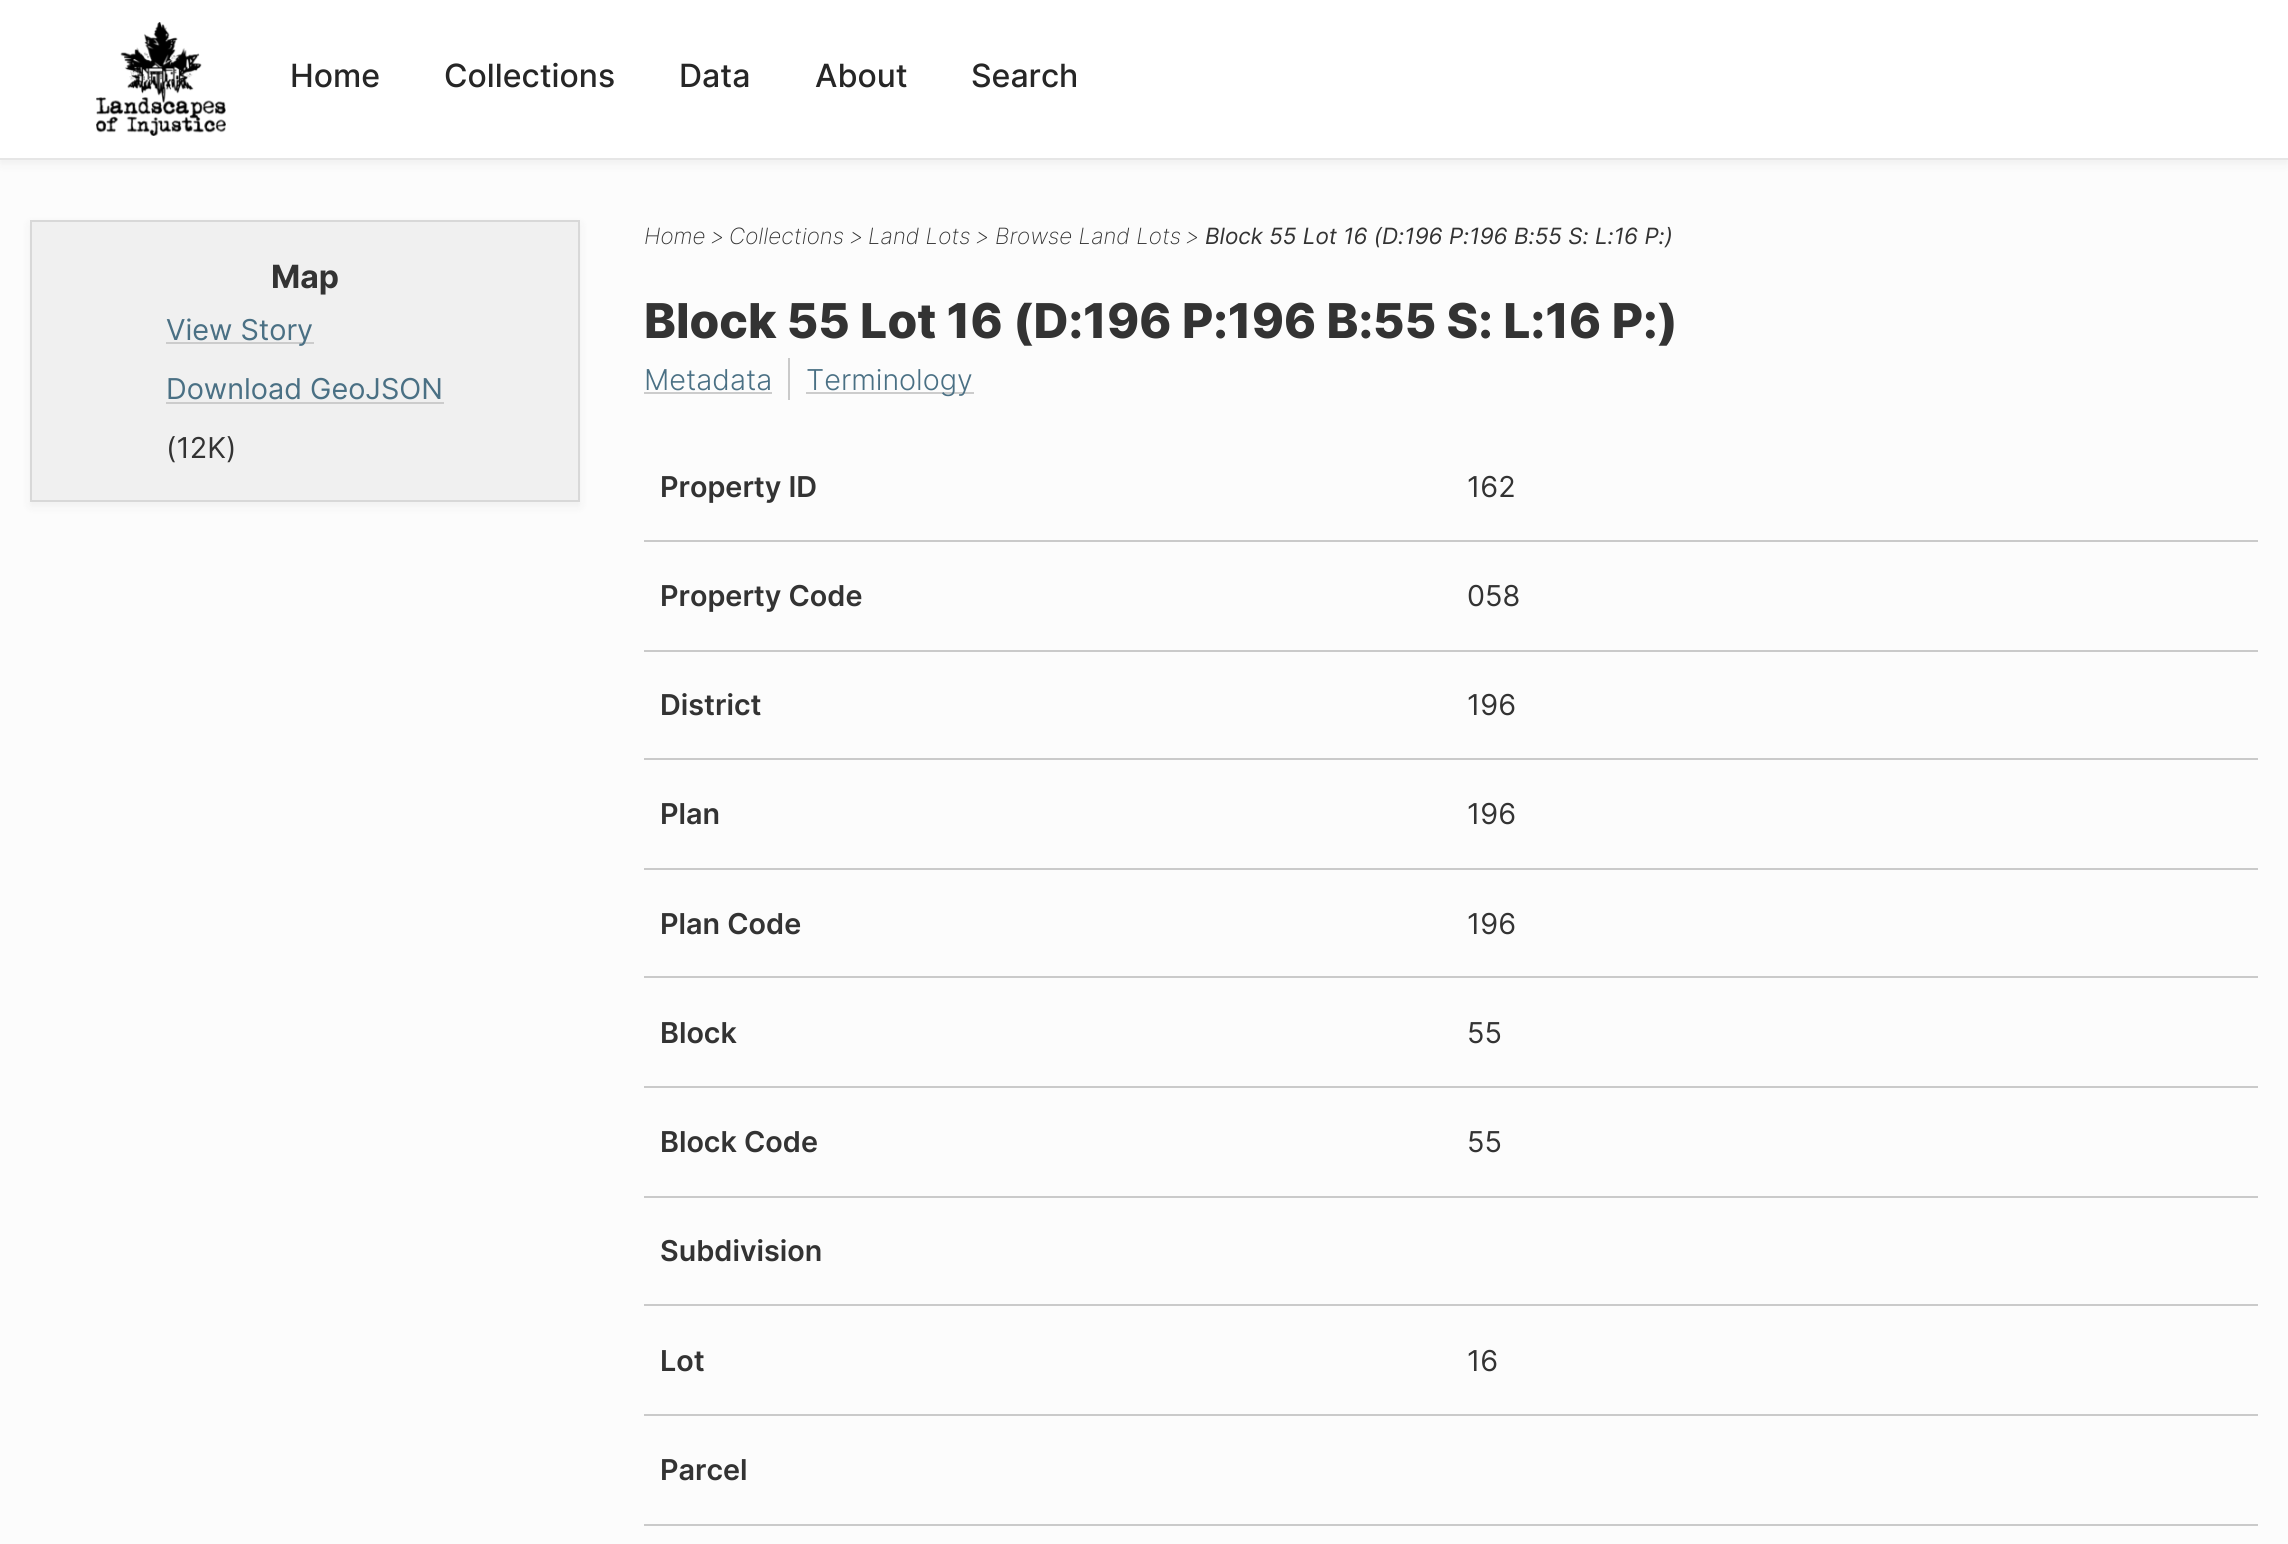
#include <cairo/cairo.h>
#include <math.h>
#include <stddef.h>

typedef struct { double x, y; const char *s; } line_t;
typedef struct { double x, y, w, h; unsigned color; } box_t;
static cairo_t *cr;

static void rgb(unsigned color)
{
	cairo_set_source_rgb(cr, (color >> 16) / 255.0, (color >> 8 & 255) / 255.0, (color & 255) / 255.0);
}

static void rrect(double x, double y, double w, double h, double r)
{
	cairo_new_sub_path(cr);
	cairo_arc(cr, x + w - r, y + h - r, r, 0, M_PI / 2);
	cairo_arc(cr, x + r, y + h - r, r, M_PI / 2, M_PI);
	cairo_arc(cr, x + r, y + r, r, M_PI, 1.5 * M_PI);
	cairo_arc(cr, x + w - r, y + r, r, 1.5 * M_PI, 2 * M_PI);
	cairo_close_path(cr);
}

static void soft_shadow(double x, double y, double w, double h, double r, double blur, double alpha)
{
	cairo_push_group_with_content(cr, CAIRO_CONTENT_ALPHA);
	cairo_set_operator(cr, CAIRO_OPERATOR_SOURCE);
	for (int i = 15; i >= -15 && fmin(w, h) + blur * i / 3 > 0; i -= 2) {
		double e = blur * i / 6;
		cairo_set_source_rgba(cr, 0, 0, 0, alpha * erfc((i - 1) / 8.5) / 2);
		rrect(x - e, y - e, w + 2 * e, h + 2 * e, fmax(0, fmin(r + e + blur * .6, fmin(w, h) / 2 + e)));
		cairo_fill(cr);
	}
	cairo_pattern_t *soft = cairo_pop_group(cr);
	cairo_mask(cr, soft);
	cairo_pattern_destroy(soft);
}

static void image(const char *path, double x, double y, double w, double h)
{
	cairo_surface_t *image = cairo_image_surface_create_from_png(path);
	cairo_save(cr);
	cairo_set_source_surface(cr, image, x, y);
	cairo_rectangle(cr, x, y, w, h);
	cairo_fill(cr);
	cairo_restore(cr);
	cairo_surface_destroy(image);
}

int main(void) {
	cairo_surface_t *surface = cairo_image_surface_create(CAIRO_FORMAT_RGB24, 2288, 1544);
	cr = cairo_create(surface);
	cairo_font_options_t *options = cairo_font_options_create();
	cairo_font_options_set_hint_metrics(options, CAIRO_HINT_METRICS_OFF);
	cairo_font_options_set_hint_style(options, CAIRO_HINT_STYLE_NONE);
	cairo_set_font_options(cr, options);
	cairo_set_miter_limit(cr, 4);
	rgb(0xfcfcfc);
	cairo_paint(cr);
	rgb(0x000000);
	soft_shadow(0, 4, 2288, 160, 0, 5, 0.05);
	rgb(0xffffff);
	cairo_rectangle(cr, 0, 0, 2288, 158);
	cairo_fill(cr);
	rgb(0xe6e6e6);
	cairo_rectangle(cr, 0, 158, 2288, 2);
	cairo_fill(cr);
	image("img/1.png", 96, 22, 130, 114);
	rgb(0x000000);
	soft_shadow(30, 224, 550, 282, 0, 5, 0.05);
	rgb(0xf0f0f0);
	cairo_rectangle(cr, 31, 221, 548, 280);
	cairo_fill_preserve(cr);
	rgb(0xd8d8d8);
	cairo_stroke(cr);
	{
		static const box_t items[] = {
			{166, 342, 148, 2, 0xcccccc},
			{166, 402, 278, 2, 0xcccccc},
			{788, 358, 2, 42, 0xcacaca},
			{644, 392, 128, 2, 0xcccccc},
			{806, 392, 168, 2, 0xcccccc},
			{644, 540, 1614, 2, 0xcacaca},
			{644, 650, 1614, 2, 0xcacaca},
			{644, 758, 1614, 2, 0xcacaca},
			{644, 868, 1614, 2, 0xcacaca},
			{644, 976, 1614, 2, 0xcacaca},
			{644, 1086, 1614, 2, 0xcacaca},
			{644, 1196, 1614, 2, 0xcacaca},
			{644, 1304, 1614, 2, 0xcacaca},
			{644, 1414, 1614, 2, 0xcacaca},
			{644, 1524, 1614, 2, 0xcacaca},
		};
		for (size_t i = 0; i < sizeof items / sizeof *items; i++) {
			rgb(items[i].color);
			cairo_rectangle(cr, items[i].x, items[i].y, items[i].w, items[i].h);
			cairo_fill(cr);
		}
	}
	cairo_select_font_face(cr, "Inter Medium", CAIRO_FONT_SLANT_NORMAL, CAIRO_FONT_WEIGHT_NORMAL);
	cairo_set_font_size(cr, 32);
	rgb(0x262626);
	{
		static const line_t items[] = {
			{290, 87, "Home"},
			{444, 87, "Collections"},
			{679, 87, "Data"},
			{815, 87, "About"},
			{971, 87, "Search"},
		};
		for (size_t i = 0; i < sizeof items / sizeof *items; i++) {
			cairo_move_to(cr, items[i].x, items[i].y);
			cairo_show_text(cr, items[i].s);
		}
	}
	cairo_select_font_face(cr, "Inter", CAIRO_FONT_SLANT_NORMAL, CAIRO_FONT_WEIGHT_BOLD);
	rgb(0x333333);
	cairo_move_to(cr, 271, 288);
	cairo_show_text(cr, "Map");
	cairo_select_font_face(cr, "Inter", CAIRO_FONT_SLANT_NORMAL, CAIRO_FONT_WEIGHT_NORMAL);
	cairo_set_font_size(cr, 28.75);
	rgb(0x4a7084);
	cairo_move_to(cr, 166, 340);
	cairo_show_text(cr, "View Story");
	cairo_move_to(cr, 166, 399);
	cairo_show_text(cr, "Download GeoJSON");
	rgb(0x333333);
	cairo_move_to(cr, 166, 458);
	cairo_show_text(cr, "(12K)");
	cairo_select_font_face(cr, "Inter ExtraLight", CAIRO_FONT_SLANT_ITALIC, CAIRO_FONT_WEIGHT_NORMAL);
	cairo_set_font_size(cr, 22.4);
	{
		static const line_t items[] = {
			{644, 244, "Home"},
			{710, 244, ">"},
			{729, 244, "Collections"},
			{849, 244, ">"},
			{868, 244, "Land Lots"},
			{975, 244, ">"},
			{995, 244, "Browse Land Lots"},
			{1185, 244, ">"},
		};
		for (size_t i = 0; i < sizeof items / sizeof *items; i++) {
			cairo_move_to(cr, items[i].x, items[i].y);
			cairo_show_text(cr, items[i].s);
		}
	}
	cairo_select_font_face(cr, "Inter", CAIRO_FONT_SLANT_ITALIC, CAIRO_FONT_WEIGHT_NORMAL);
	cairo_move_to(cr, 1205, 244);
	cairo_show_text(cr, "Block 55 Lot 16 (D:196 P:196 B:55 S: L:16 P:)");
	cairo_select_font_face(cr, "Inter ExtraBold", CAIRO_FONT_SLANT_NORMAL, CAIRO_FONT_WEIGHT_NORMAL);
	cairo_set_font_size(cr, 48);
	cairo_move_to(cr, 644, 338);
	cairo_show_text(cr, "Block 55 Lot 16 (D:196 P:196 B:55 S: L:16 P:)");
	cairo_select_font_face(cr, "Inter Light", CAIRO_FONT_SLANT_NORMAL, CAIRO_FONT_WEIGHT_NORMAL);
	cairo_set_font_size(cr, 28.75);
	rgb(0x4a7084);
	cairo_move_to(cr, 644, 390);
	cairo_show_text(cr, "Metadata");
	cairo_move_to(cr, 806, 390);
	cairo_show_text(cr, "Terminology");
	cairo_select_font_face(cr, "Inter SemiBold", CAIRO_FONT_SLANT_NORMAL, CAIRO_FONT_WEIGHT_NORMAL);
	rgb(0x333333);
	cairo_move_to(cr, 660, 497);
	cairo_show_text(cr, "Property ID");
	cairo_select_font_face(cr, "Inter", CAIRO_FONT_SLANT_NORMAL, CAIRO_FONT_WEIGHT_NORMAL);
	cairo_move_to(cr, 1467, 497);
	cairo_show_text(cr, "162");
	cairo_select_font_face(cr, "Inter SemiBold", CAIRO_FONT_SLANT_NORMAL, CAIRO_FONT_WEIGHT_NORMAL);
	cairo_move_to(cr, 660, 606);
	cairo_show_text(cr, "Property Code");
	cairo_select_font_face(cr, "Inter", CAIRO_FONT_SLANT_NORMAL, CAIRO_FONT_WEIGHT_NORMAL);
	cairo_move_to(cr, 1467, 606);
	cairo_show_text(cr, "058");
	cairo_select_font_face(cr, "Inter SemiBold", CAIRO_FONT_SLANT_NORMAL, CAIRO_FONT_WEIGHT_NORMAL);
	cairo_move_to(cr, 660, 715);
	cairo_show_text(cr, "District");
	cairo_select_font_face(cr, "Inter", CAIRO_FONT_SLANT_NORMAL, CAIRO_FONT_WEIGHT_NORMAL);
	cairo_move_to(cr, 1467, 715);
	cairo_show_text(cr, "196");
	cairo_select_font_face(cr, "Inter SemiBold", CAIRO_FONT_SLANT_NORMAL, CAIRO_FONT_WEIGHT_NORMAL);
	cairo_move_to(cr, 660, 824);
	cairo_show_text(cr, "Plan");
	cairo_select_font_face(cr, "Inter", CAIRO_FONT_SLANT_NORMAL, CAIRO_FONT_WEIGHT_NORMAL);
	cairo_move_to(cr, 1467, 824);
	cairo_show_text(cr, "196");
	cairo_select_font_face(cr, "Inter SemiBold", CAIRO_FONT_SLANT_NORMAL, CAIRO_FONT_WEIGHT_NORMAL);
	cairo_move_to(cr, 660, 934);
	cairo_show_text(cr, "Plan Code");
	cairo_select_font_face(cr, "Inter", CAIRO_FONT_SLANT_NORMAL, CAIRO_FONT_WEIGHT_NORMAL);
	cairo_move_to(cr, 1467, 934);
	cairo_show_text(cr, "196");
	cairo_select_font_face(cr, "Inter SemiBold", CAIRO_FONT_SLANT_NORMAL, CAIRO_FONT_WEIGHT_NORMAL);
	cairo_move_to(cr, 660, 1043);
	cairo_show_text(cr, "Block");
	cairo_select_font_face(cr, "Inter", CAIRO_FONT_SLANT_NORMAL, CAIRO_FONT_WEIGHT_NORMAL);
	cairo_move_to(cr, 1467, 1043);
	cairo_show_text(cr, "55");
	cairo_select_font_face(cr, "Inter SemiBold", CAIRO_FONT_SLANT_NORMAL, CAIRO_FONT_WEIGHT_NORMAL);
	cairo_move_to(cr, 660, 1152);
	cairo_show_text(cr, "Block Code");
	cairo_select_font_face(cr, "Inter", CAIRO_FONT_SLANT_NORMAL, CAIRO_FONT_WEIGHT_NORMAL);
	cairo_move_to(cr, 1467, 1152);
	cairo_show_text(cr, "55");
	cairo_select_font_face(cr, "Inter SemiBold", CAIRO_FONT_SLANT_NORMAL, CAIRO_FONT_WEIGHT_NORMAL);
	cairo_move_to(cr, 660, 1261);
	cairo_show_text(cr, "Subdivision");
	cairo_move_to(cr, 660, 1371);
	cairo_show_text(cr, "Lot");
	cairo_select_font_face(cr, "Inter", CAIRO_FONT_SLANT_NORMAL, CAIRO_FONT_WEIGHT_NORMAL);
	cairo_move_to(cr, 1467, 1371);
	cairo_show_text(cr, "16");
	cairo_select_font_face(cr, "Inter SemiBold", CAIRO_FONT_SLANT_NORMAL, CAIRO_FONT_WEIGHT_NORMAL);
	cairo_move_to(cr, 660, 1480);
	cairo_show_text(cr, "Parcel");
	cairo_surface_write_to_png(surface, "page.png");
	cairo_font_options_destroy(options);
	cairo_destroy(cr);
	cairo_surface_destroy(surface);
	return 0;
}
